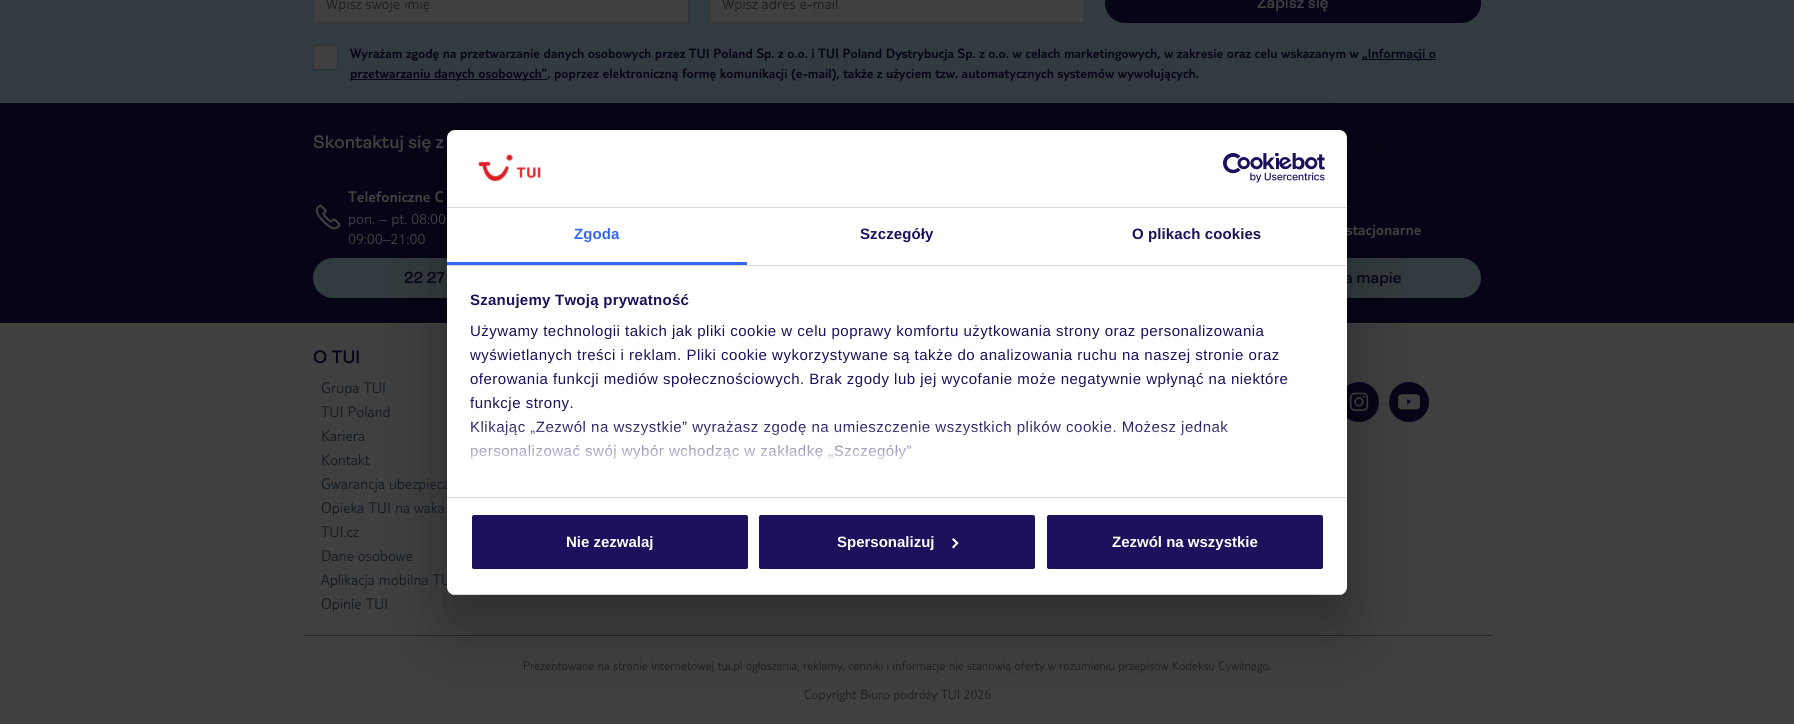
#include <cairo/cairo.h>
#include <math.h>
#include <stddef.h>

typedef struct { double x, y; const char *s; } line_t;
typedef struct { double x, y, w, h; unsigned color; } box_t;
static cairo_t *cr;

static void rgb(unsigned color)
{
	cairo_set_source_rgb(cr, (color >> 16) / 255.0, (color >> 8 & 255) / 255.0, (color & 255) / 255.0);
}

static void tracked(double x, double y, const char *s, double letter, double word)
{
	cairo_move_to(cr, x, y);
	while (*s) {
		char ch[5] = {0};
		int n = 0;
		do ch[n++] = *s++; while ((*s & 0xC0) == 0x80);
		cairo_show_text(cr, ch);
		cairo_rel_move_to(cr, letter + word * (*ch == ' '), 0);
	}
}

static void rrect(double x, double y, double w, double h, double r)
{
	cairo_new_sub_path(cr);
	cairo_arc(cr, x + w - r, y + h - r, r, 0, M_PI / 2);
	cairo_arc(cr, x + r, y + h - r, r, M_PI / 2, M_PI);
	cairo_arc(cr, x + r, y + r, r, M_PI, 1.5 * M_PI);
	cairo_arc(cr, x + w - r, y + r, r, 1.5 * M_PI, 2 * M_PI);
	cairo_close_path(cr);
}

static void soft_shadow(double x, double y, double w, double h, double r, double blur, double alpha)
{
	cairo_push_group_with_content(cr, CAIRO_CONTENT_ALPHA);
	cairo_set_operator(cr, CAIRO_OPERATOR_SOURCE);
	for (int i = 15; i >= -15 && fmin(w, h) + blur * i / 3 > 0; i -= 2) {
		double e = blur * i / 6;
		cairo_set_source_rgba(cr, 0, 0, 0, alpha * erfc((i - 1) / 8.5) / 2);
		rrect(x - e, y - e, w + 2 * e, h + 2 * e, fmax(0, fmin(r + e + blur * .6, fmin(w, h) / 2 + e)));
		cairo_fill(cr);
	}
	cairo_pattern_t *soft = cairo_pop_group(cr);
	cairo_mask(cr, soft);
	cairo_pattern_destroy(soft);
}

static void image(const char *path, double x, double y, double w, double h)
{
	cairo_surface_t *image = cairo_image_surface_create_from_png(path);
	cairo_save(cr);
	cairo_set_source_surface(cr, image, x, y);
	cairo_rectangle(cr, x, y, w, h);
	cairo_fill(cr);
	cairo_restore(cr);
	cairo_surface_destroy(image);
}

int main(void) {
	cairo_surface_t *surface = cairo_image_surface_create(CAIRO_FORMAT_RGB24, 1794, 724);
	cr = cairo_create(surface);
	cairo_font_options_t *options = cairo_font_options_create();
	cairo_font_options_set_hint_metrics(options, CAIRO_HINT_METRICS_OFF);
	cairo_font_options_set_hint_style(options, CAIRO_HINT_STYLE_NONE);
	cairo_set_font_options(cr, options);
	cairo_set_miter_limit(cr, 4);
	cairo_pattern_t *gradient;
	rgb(0x404040);
	cairo_paint(cr);
	rgb(0x323b3f);
	cairo_rectangle(cr, 0, 0, 1794, 103);
	cairo_fill(cr);
	rgb(0x404040);
	cairo_rectangle(cr, 313.5, -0.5, 375, 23);
	cairo_fill_preserve(cr);
	rgb(0x353535);
	cairo_set_line_width(cr, 1);
	cairo_stroke(cr);
	rgb(0x404040);
	cairo_rectangle(cr, 709.5, -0.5, 375, 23);
	cairo_fill_preserve(cr);
	rgb(0x353535);
	cairo_stroke(cr);
	rgb(0x070417);
	rrect(1105, -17, 376, 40, 20);
	cairo_fill(cr);
	rgb(0x404040);
	cairo_rectangle(cr, 313, 45, 25, 24);
	cairo_fill(cr);
	rgb(0x3a3a3a);
	cairo_rectangle(cr, 313, 69, 25, 1);
	cairo_fill(cr);
	cairo_rectangle(cr, 313.5, 45.5, 24, 24);
	cairo_set_source_rgba(cr, 0, 0, 0, 0.2);
	cairo_stroke(cr);
	{
		static const box_t items[] = {
			{1362, 59, 74, 1, 0x070417},
			{350, 79, 197, 1, 0x070417},
			{0, 103, 1794, 220, 0x070417},
		};
		for (size_t i = 0; i < sizeof items / sizeof *items; i++) {
			rgb(items[i].color);
			cairo_rectangle(cr, items[i].x, items[i].y, items[i].w, items[i].h);
			cairo_fill(cr);
		}
	}
	image("img/1.png", 315, 204, 26, 26);
	rgb(0x323b3f);
	rrect(313, 258, 277, 40, 20);
	cairo_fill(cr);
	rrect(1204, 258, 277, 40, 20);
	cairo_fill(cr);
	image("img/2.png", 1347, 382, 32, 40);
	image("img/3.png", 1389, 382, 40, 40);
	rgb(0x272727);
	cairo_rectangle(cr, 303, 635, 1188, 1);
	cairo_fill(cr);
	rgb(0x000000);
	soft_shadow(447, 162, 900, 465, 8, 34, 0.3);
	cairo_select_font_face(cr, "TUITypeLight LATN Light", CAIRO_FONT_SLANT_NORMAL, CAIRO_FONT_WEIGHT_NORMAL);
	cairo_set_font_size(cr, 16);
	rgb(0x1d1d1d);
	cairo_move_to(cr, 326, 9);
	cairo_show_text(cr, "Wpisz swoje imię");
	cairo_move_to(cr, 722, 9);
	cairo_show_text(cr, "Wpisz adres e-mail");
	cairo_select_font_face(cr, "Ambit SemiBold", CAIRO_FONT_SLANT_NORMAL, CAIRO_FONT_WEIGHT_NORMAL);
	rgb(0x404040);
	cairo_move_to(cr, 1257, 8);
	cairo_show_text(cr, "Zapisz się");
	cairo_select_font_face(cr, "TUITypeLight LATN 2 Light", CAIRO_FONT_SLANT_NORMAL, CAIRO_FONT_WEIGHT_NORMAL);
	cairo_set_font_size(cr, 14);
	rgb(0x070417);
	{
		static const line_t items[] = {
			{350, 58, "Wyrażam zgodę na przetwarzanie danych osobowych przez TUI Poland Sp. z o.o. i TUI Poland Dystrybucja Sp. z o.o. w celach marketingowych, w zakresie oraz celu wskazanym w"},
			{1362, 58, "„Informacji o"},
			{350, 78, "przetwarzaniu danych osobowych”, poprzez elektroniczną formę komunikacji (e-mail), także z użyciem tzw. automatycznych systemów wywołujących."},
		};
		for (size_t i = 0; i < sizeof items / sizeof *items; i++) {
			cairo_move_to(cr, items[i].x, items[i].y);
			cairo_show_text(cr, items[i].s);
		}
	}
	cairo_select_font_face(cr, "Ambit SemiBold", CAIRO_FONT_SLANT_NORMAL, CAIRO_FONT_WEIGHT_NORMAL);
	cairo_set_font_size(cr, 18);
	rgb(0x404040);
	cairo_move_to(cr, 313, 148);
	cairo_show_text(cr, "Skontaktuj się z");
	cairo_select_font_face(cr, "TUITypeLight LATN 2 Light", CAIRO_FONT_SLANT_NORMAL, CAIRO_FONT_WEIGHT_NORMAL);
	cairo_set_font_size(cr, 16);
	cairo_move_to(cr, 348, 202);
	cairo_show_text(cr, "Telefoniczne C");
	cairo_select_font_face(cr, "TUITypeLight LATN Light", CAIRO_FONT_SLANT_NORMAL, CAIRO_FONT_WEIGHT_NORMAL);
	cairo_move_to(cr, 348, 224);
	cairo_show_text(cr, "pon. – pt. 08:00");
	cairo_move_to(cr, 348, 244);
	cairo_show_text(cr, "09:00–21:00");
	cairo_select_font_face(cr, "Ambit SemiBold", CAIRO_FONT_SLANT_NORMAL, CAIRO_FONT_WEIGHT_NORMAL);
	rgb(0x070417);
	cairo_move_to(cr, 404, 283);
	cairo_show_text(cr, "22 27");
	cairo_select_font_face(cr, "TUITypeLight LATN 2 Light", CAIRO_FONT_SLANT_NORMAL, CAIRO_FONT_WEIGHT_NORMAL);
	rgb(0x404040);
	cairo_move_to(cr, 1346, 235);
	cairo_show_text(cr, "stacjonarne");
	cairo_select_font_face(cr, "Ambit SemiBold", CAIRO_FONT_SLANT_NORMAL, CAIRO_FONT_WEIGHT_NORMAL);
	rgb(0x070417);
	cairo_move_to(cr, 1344, 283);
	cairo_show_text(cr, "a mapie");
	cairo_set_font_size(cr, 18);
	cairo_move_to(cr, 313, 363);
	cairo_show_text(cr, "O TUI");
	cairo_select_font_face(cr, "TUITypeLight LATN Light", CAIRO_FONT_SLANT_NORMAL, CAIRO_FONT_WEIGHT_NORMAL);
	cairo_set_font_size(cr, 16);
	rgb(0x121b23);
	{
		static const line_t items[] = {
			{321, 393, "Grupa TUI"},
			{321, 417, "TUI Poland"},
			{321, 441, "Kariera"},
			{321, 465, "Kontakt"},
			{321, 489, "Gwarancja ubezpiecz"},
			{321, 513, "Opieka TUI na waka"},
			{321, 537, "TUI.cz"},
			{321, 561, "Dane osobowe"},
			{321, 585, "Aplikacja mobilna TU"},
			{321, 609, "Opinie TUI"},
		};
		for (size_t i = 0; i < sizeof items / sizeof *items; i++) {
			cairo_move_to(cr, items[i].x, items[i].y);
			cairo_show_text(cr, items[i].s);
		}
	}
	cairo_set_font_size(cr, 13);
	rgb(0x1d1d1d);
	cairo_move_to(cr, 523, 670);
	cairo_show_text(cr, "Prezentowane na stronie internetowej tui.pl ogłoszenia, reklamy, cenniki i informacje nie stanowią oferty w rozumieniu przepisów Kodeksu Cywilnego.");
	cairo_set_font_size(cr, 14);
	cairo_move_to(cr, 804, 699);
	cairo_show_text(cr, "Copyright Biuro podróży TUI 2026");
	rgb(0xffffff);
	rrect(447, 130, 900, 465, 8);
	cairo_fill(cr);
	rgb(0xd6d6d6);
	cairo_rectangle(cr, 447, 207, 900, 1);
	cairo_fill(cr);
	image("img/4.png", 478, 154, 63, 28);
	image("img/5.png", 1223, 153, 102, 30);
	cairo_rectangle(cr, 447, 265, 900, 1);
	cairo_fill(cr);
	rgb(0x3567f6);
	cairo_rectangle(cr, 447, 262, 300, 3);
	cairo_fill(cr);
	cairo_select_font_face(cr, "Liberation Sans", CAIRO_FONT_SLANT_NORMAL, CAIRO_FONT_WEIGHT_BOLD);
	cairo_set_font_size(cr, 15);
	tracked(574, 239, "Zgoda", 0.1, 0);
	rgb(0x1b115c);
	tracked(860, 239, "Szczegóły", 0.1, 0);
	tracked(1132, 239, "O plikach cookies", 0.1, 0);
	rgb(0xd6d6d6);
	cairo_rectangle(cr, 447, 497, 900, 1);
	cairo_fill(cr);
	rgb(0x1b115c);
	tracked(470, 305, "Szanujemy Twoją prywatność", 0.25, 0);
	cairo_select_font_face(cr, "Liberation Sans", CAIRO_FONT_SLANT_NORMAL, CAIRO_FONT_WEIGHT_NORMAL);
	{
		static const line_t items[] = {
			{470, 336, "Używamy technologii takich jak pliki cookie w celu poprawy komfortu użytkowania strony oraz personalizowania"},
			{470, 360, "wyświetlanych treści i reklam. Pliki cookie wykorzystywane są także do analizowania ruchu na naszej stronie oraz"},
			{470, 384, "oferowania funkcji mediów społecznościowych. Brak zgody lub jej wycofanie może negatywnie wpłynąć na niektóre"},
			{470, 408, "funkcje strony."},
			{470, 432, "Klikając „Zezwól na wszystkie” wyrażasz zgodę na umieszczenie wszystkich plików cookie. Możesz jednak"},
			{470, 456, "personalizować swój wybór wchodząc w zakładkę „Szczegóły”"},
		};
		for (size_t i = 0; i < sizeof items / sizeof *items; i++) {
			tracked(items[i].x, items[i].y, items[i].s, 0.5, 0);
		}
	}
	gradient = cairo_pattern_create_linear(887, 497, 887, 422);
	cairo_pattern_add_color_stop_rgba(gradient, 0, 1, 1, 1, 1);
	cairo_pattern_add_color_stop_rgba(gradient, 0.5, 1, 1, 1, 0.8);
	cairo_pattern_add_color_stop_rgba(gradient, 1, 1, 1, 1, 0);
	cairo_set_source(cr, gradient);
	cairo_pattern_destroy(gradient);
	cairo_rectangle(cr, 470, 423, 757, 37);
	cairo_fill(cr);
	cairo_save(cr);
	rrect(447, 130, 900, 465, 8);
	cairo_clip(cr);
	rgb(0xd6d6d6);
	cairo_rectangle(cr, 447, 594, 900, 1);
	cairo_fill(cr);
	cairo_restore(cr);
	rgb(0x1b115c);
	rrect(471, 514, 278, 56, 3);
	cairo_fill_preserve(cr);
	rgb(0xffffff);
	cairo_set_line_width(cr, 2);
	cairo_stroke(cr);
	cairo_select_font_face(cr, "Liberation Sans", CAIRO_FONT_SLANT_NORMAL, CAIRO_FONT_WEIGHT_BOLD);
	cairo_move_to(cr, 566, 547);
	cairo_show_text(cr, "Nie zezwalaj");
	rgb(0x1b115c);
	rrect(758, 514, 278, 56, 3);
	cairo_fill_preserve(cr);
	rgb(0xffffff);
	cairo_stroke(cr);
	cairo_move_to(cr, 837, 547);
	cairo_show_text(cr, "Spersonalizuj");
	cairo_new_path(cr);
	cairo_move_to(cr, 953.5, 538);
	cairo_line_to(cr, 958.5, 543);
	cairo_line_to(cr, 957, 544.5);
	cairo_line_to(cr, 952, 539.5);
	cairo_close_path(cr);
	cairo_fill(cr);
	cairo_new_path(cr);
	cairo_move_to(cr, 957, 542);
	cairo_line_to(cr, 958.5, 543);
	cairo_line_to(cr, 953.5, 548.5);
	cairo_line_to(cr, 952, 547);
	cairo_close_path(cr);
	cairo_fill(cr);
	rgb(0x1b115c);
	rrect(1046, 514, 278, 56, 3);
	cairo_fill_preserve(cr);
	rgb(0xffffff);
	cairo_stroke(cr);
	cairo_move_to(cr, 1112, 547);
	cairo_show_text(cr, "Zezwól na wszystkie");
	cairo_surface_write_to_png(surface, "page.png");
	cairo_font_options_destroy(options);
	cairo_destroy(cr);
	cairo_surface_destroy(surface);
	return 0;
}
